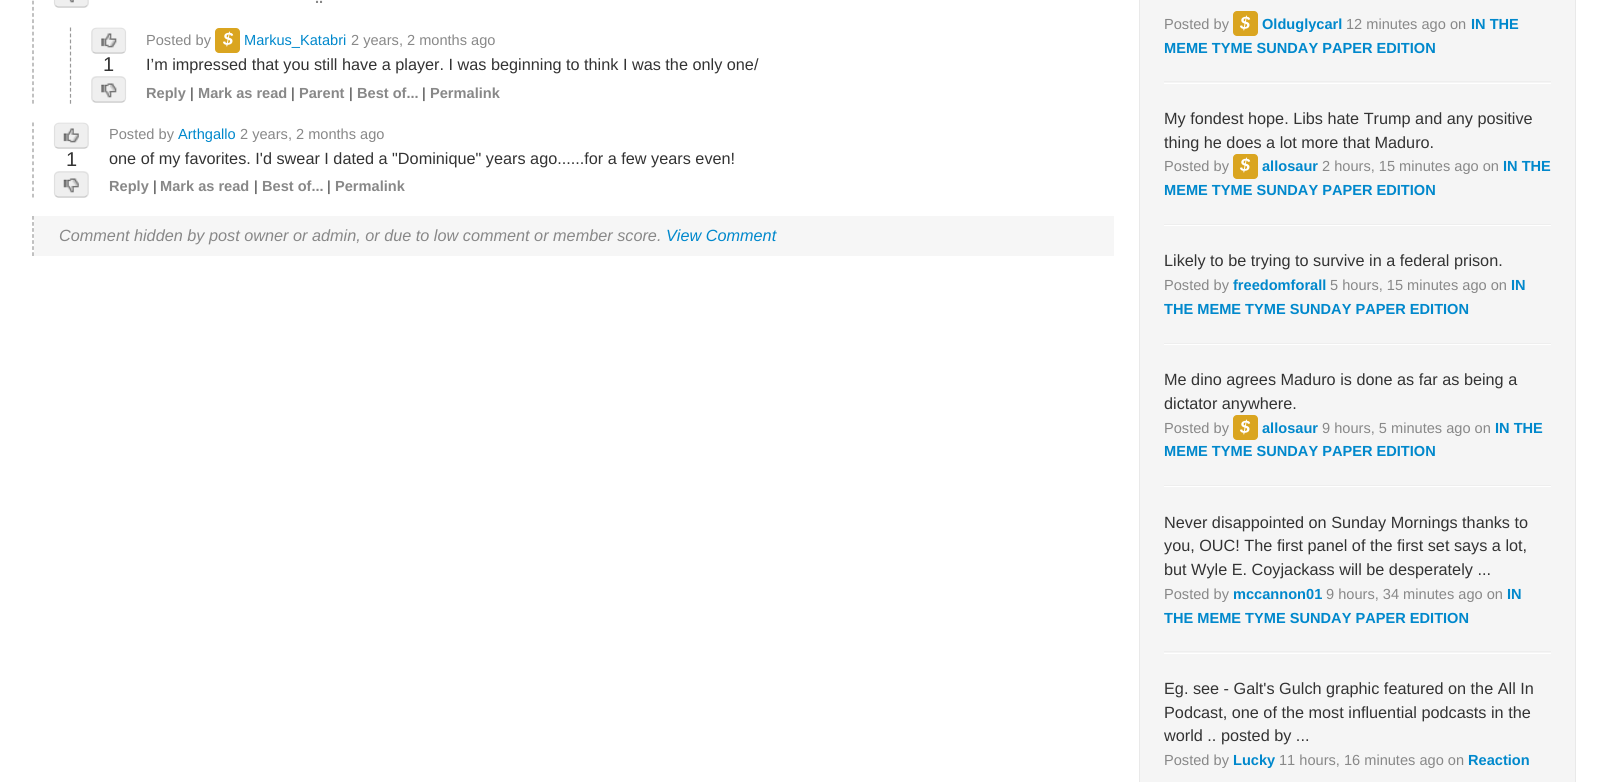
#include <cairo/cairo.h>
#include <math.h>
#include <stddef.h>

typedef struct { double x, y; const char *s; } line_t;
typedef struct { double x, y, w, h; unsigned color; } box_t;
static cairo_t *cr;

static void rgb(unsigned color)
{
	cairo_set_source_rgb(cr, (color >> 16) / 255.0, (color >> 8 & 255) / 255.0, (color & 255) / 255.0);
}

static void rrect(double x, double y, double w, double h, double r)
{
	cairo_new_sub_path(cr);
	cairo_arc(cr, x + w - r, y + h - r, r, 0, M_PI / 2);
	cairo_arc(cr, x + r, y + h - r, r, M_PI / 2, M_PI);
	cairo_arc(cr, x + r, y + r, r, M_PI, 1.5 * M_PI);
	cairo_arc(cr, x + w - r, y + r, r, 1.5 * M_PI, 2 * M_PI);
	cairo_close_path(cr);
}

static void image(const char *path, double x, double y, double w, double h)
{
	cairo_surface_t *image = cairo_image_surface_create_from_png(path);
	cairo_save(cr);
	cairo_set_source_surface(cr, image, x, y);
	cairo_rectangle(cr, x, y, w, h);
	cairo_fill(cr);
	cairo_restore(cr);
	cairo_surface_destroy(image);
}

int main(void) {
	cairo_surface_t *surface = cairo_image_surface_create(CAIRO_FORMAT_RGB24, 1601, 782);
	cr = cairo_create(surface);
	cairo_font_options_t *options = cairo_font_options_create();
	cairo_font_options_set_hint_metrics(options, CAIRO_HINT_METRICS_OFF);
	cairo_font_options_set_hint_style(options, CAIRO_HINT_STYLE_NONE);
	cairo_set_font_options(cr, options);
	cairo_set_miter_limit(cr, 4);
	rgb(0xffffff);
	cairo_paint(cr);
	cairo_new_path(cr);
	cairo_move_to(cr, 33, -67.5);
	cairo_line_to(cr, 33, 104);
	rgb(0x999999);
	cairo_set_line_width(cr, 1.2);
	cairo_set_dash(cr, (double[]){3.75, 2.45}, 2, 0);
	cairo_stroke(cr);
	rgb(0xefefef);
	rrect(54, -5, 35, 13, 5);
	cairo_fill(cr);
	cairo_new_path(cr);
	cairo_move_to(cr, 87, 5.5);
	cairo_curve_to(cr, 86, 6.5, 85, 7, 84, 7);
	cairo_line_to(cr, 59, 7);
	cairo_curve_to(cr, 57.5, 7, 56.5, 6.5, 55.5, 5.5);
	rgb(0xcacaca);
	cairo_set_dash(cr, NULL, 0, 0);
	cairo_stroke(cr);
	cairo_new_path(cr);
	cairo_move_to(cr, 55.5, 5.5);
	cairo_curve_to(cr, 54, 4, 54.5, 2, 54.5, 0);
	cairo_line_to(cr, 54.5, -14.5);
	cairo_curve_to(cr, 55.5, -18.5, 60, -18, 63, -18);
	cairo_line_to(cr, 79.5, -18);
	cairo_curve_to(cr, 82.5, -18, 87, -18.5, 88, -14.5);
	cairo_line_to(cr, 88, 0);
	cairo_curve_to(cr, 88, 2, 88.5, 4, 87, 5.5);
	cairo_set_source_rgba(cr, 0.349, 0.349, 0.349, 0.1);
	cairo_stroke(cr);
	image("img/1.png", 69, 0, 5, 3);
	cairo_new_path(cr);
	cairo_move_to(cr, 70.5, 27.5);
	cairo_line_to(cr, 70.5, 104);
	rgb(0x999999);
	cairo_set_dash(cr, (double[]){3.75, 2.29}, 2, 0);
	cairo_stroke(cr);
	rgb(0xefefef);
	rrect(91, 28, 35, 26, 5);
	cairo_fill(cr);
	cairo_new_path(cr);
	cairo_move_to(cr, 124.5, 52);
	cairo_curve_to(cr, 123.5, 52.5, 122.5, 53, 121, 53);
	cairo_line_to(cr, 96, 53);
	cairo_curve_to(cr, 95, 53, 94, 52.5, 93, 52);
	rgb(0xcacaca);
	cairo_set_dash(cr, NULL, 0, 0);
	cairo_stroke(cr);
	cairo_new_path(cr);
	cairo_move_to(cr, 93, 52);
	cairo_curve_to(cr, 91.5, 50.5, 92, 48, 92, 46);
	cairo_line_to(cr, 92, 31.5);
	cairo_curve_to(cr, 93, 27.5, 97.5, 28, 100.5, 28);
	cairo_line_to(cr, 117, 28);
	cairo_curve_to(cr, 120, 28, 124.5, 27.5, 125.5, 31.5);
	cairo_line_to(cr, 125.5, 46);
	cairo_curve_to(cr, 125.5, 48, 126, 50.5, 124.5, 52);
	cairo_set_source_rgba(cr, 0.349, 0.349, 0.349, 0.1);
	cairo_stroke(cr);
	image("img/2.png", 101, 33, 16, 15);
	rgb(0xefefef);
	rrect(91, 76, 35, 27, 5);
	cairo_fill(cr);
	cairo_new_path(cr);
	cairo_move_to(cr, 124.5, 100.5);
	cairo_curve_to(cr, 123.5, 101.5, 122.5, 102, 121, 102);
	cairo_line_to(cr, 96, 102);
	cairo_curve_to(cr, 95, 102, 94, 101.5, 93, 100.5);
	rgb(0xcacaca);
	cairo_stroke(cr);
	cairo_new_path(cr);
	cairo_move_to(cr, 93, 100.5);
	cairo_curve_to(cr, 91.5, 99, 92, 97, 92, 95);
	cairo_line_to(cr, 92, 80.5);
	cairo_curve_to(cr, 93, 76.5, 97.5, 77, 100.5, 77);
	cairo_line_to(cr, 117, 77);
	cairo_curve_to(cr, 120, 77, 124.5, 76.5, 125.5, 80.5);
	cairo_line_to(cr, 125.5, 95);
	cairo_curve_to(cr, 125.5, 97, 126, 99, 124.5, 100.5);
	cairo_set_source_rgba(cr, 0.349, 0.349, 0.349, 0.1);
	cairo_stroke(cr);
	image("img/3.png", 101, 83, 16, 15);
	rgb(0xdaa520);
	rrect(215, 28, 25, 25, 4);
	cairo_fill(cr);
	cairo_new_path(cr);
	cairo_move_to(cr, 33, 122.5);
	cairo_line_to(cr, 33, 197.5);
	rgb(0x999999);
	cairo_set_dash(cr, (double[]){3.75, 2.73}, 2, 0);
	cairo_stroke(cr);
	rgb(0xefefef);
	rrect(54, 123, 35, 26, 5);
	cairo_fill(cr);
	cairo_new_path(cr);
	cairo_move_to(cr, 87, 147);
	cairo_curve_to(cr, 86, 147.5, 85, 148, 84, 148);
	cairo_line_to(cr, 59, 148);
	cairo_curve_to(cr, 57.5, 148, 56.5, 147.5, 55.5, 147);
	rgb(0xcacaca);
	cairo_set_dash(cr, NULL, 0, 0);
	cairo_stroke(cr);
	cairo_new_path(cr);
	cairo_move_to(cr, 55.5, 147);
	cairo_curve_to(cr, 54, 145.5, 54.5, 143, 54.5, 141);
	cairo_line_to(cr, 54.5, 126.5);
	cairo_curve_to(cr, 55.5, 122.5, 60, 123, 63, 123);
	cairo_line_to(cr, 79.5, 123);
	cairo_curve_to(cr, 82.5, 123, 87, 122.5, 88, 126.5);
	cairo_line_to(cr, 88, 141);
	cairo_curve_to(cr, 88, 143, 88.5, 145.5, 87, 147);
	cairo_set_source_rgba(cr, 0.349, 0.349, 0.349, 0.1);
	cairo_stroke(cr);
	image("img/4.png", 63, 128, 16, 15);
	rgb(0xefefef);
	rrect(54, 171, 35, 27, 5);
	cairo_fill(cr);
	cairo_new_path(cr);
	cairo_move_to(cr, 87, 195.5);
	cairo_curve_to(cr, 86, 196.5, 85, 197, 84, 197);
	cairo_line_to(cr, 59, 197);
	cairo_curve_to(cr, 57.5, 197, 56.5, 196.5, 55.5, 195.5);
	rgb(0xcacaca);
	cairo_stroke(cr);
	cairo_new_path(cr);
	cairo_move_to(cr, 55.5, 195.5);
	cairo_curve_to(cr, 54, 194, 54.5, 192, 54.5, 190);
	cairo_line_to(cr, 54.5, 175.5);
	cairo_curve_to(cr, 55.5, 171.5, 60, 172, 63, 172);
	cairo_line_to(cr, 79.5, 172);
	cairo_curve_to(cr, 82.5, 172, 87, 171.5, 88, 175.5);
	cairo_line_to(cr, 88, 190);
	cairo_curve_to(cr, 88, 192, 88.5, 194, 87, 195.5);
	cairo_set_source_rgba(cr, 0.349, 0.349, 0.349, 0.1);
	cairo_stroke(cr);
	image("img/5.png", 63, 178, 16, 15);
	cairo_new_path(cr);
	cairo_move_to(cr, 33, 216);
	cairo_line_to(cr, 33, 256);
	rgb(0x999999);
	cairo_set_dash(cr, (double[]){3.75, 2.29}, 2, 0);
	cairo_stroke(cr);
	rgb(0xf6f6f6);
	cairo_rectangle(cr, 34, 216, 1080, 40);
	cairo_fill(cr);
	rgb(0xf5f5f5);
	cairo_rectangle(cr, 1139.5, -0.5, 436, 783);
	cairo_fill_preserve(cr);
	rgb(0xe9e9e9);
	cairo_set_line_width(cr, 1);
	cairo_set_dash(cr, NULL, 0, 0);
	cairo_stroke(cr);
	rgb(0xdaa520);
	rrect(1233, 11, 25, 25, 4);
	cairo_fill(cr);
	rgb(0xeeeeee);
	cairo_rectangle(cr, 1164, 81, 387, 1);
	cairo_fill(cr);
	rgb(0xffffff);
	cairo_rectangle(cr, 1164, 83, 387, 1);
	cairo_fill(cr);
	rgb(0xdaa520);
	rrect(1233, 154, 25, 25, 4);
	cairo_fill(cr);
	{
		static const box_t items[] = {
			{1164, 224, 387, 1, 0xeeeeee},
			{1164, 225, 387, 1, 0xffffff},
			{1164, 343, 387, 1, 0xeeeeee},
			{1164, 344, 387, 1, 0xffffff},
		};
		for (size_t i = 0; i < sizeof items / sizeof *items; i++) {
			rgb(items[i].color);
			cairo_rectangle(cr, items[i].x, items[i].y, items[i].w, items[i].h);
			cairo_fill(cr);
		}
	}
	rgb(0xdaa520);
	rrect(1233, 415, 25, 25, 4);
	cairo_fill(cr);
	{
		static const box_t items[] = {
			{1164, 485, 387, 1, 0xeeeeee},
			{1164, 486, 387, 1, 0xffffff},
			{1164, 651, 387, 1, 0xeeeeee},
			{1164, 653, 387, 1, 0xffffff},
		};
		for (size_t i = 0; i < sizeof items / sizeof *items; i++) {
			rgb(items[i].color);
			cairo_rectangle(cr, items[i].x, items[i].y, items[i].w, items[i].h);
			cairo_fill(cr);
		}
	}
	cairo_select_font_face(cr, "Liberation Sans", CAIRO_FONT_SLANT_NORMAL, CAIRO_FONT_WEIGHT_BOLD);
	cairo_set_font_size(cr, 14.6);
	rgb(0x888888);
	cairo_move_to(cr, 315, 3);
	cairo_show_text(cr, "..");
	cairo_select_font_face(cr, "Liberation Sans", CAIRO_FONT_SLANT_NORMAL, CAIRO_FONT_WEIGHT_NORMAL);
	cairo_set_font_size(cr, 20);
	rgb(0x333333);
	cairo_move_to(cr, 103, 71);
	cairo_show_text(cr, "1");
	cairo_set_font_size(cr, 14.6);
	rgb(0x888888);
	cairo_move_to(cr, 146, 45);
	cairo_show_text(cr, "Posted by");
	cairo_select_font_face(cr, "Liberation Sans", CAIRO_FONT_SLANT_ITALIC, CAIRO_FONT_WEIGHT_BOLD);
	cairo_set_font_size(cr, 18);
	rgb(0xffffff);
	cairo_move_to(cr, 223, 45);
	cairo_show_text(cr, "$");
	cairo_select_font_face(cr, "Liberation Sans", CAIRO_FONT_SLANT_NORMAL, CAIRO_FONT_WEIGHT_NORMAL);
	cairo_set_font_size(cr, 14.6);
	rgb(0x0088cc);
	cairo_move_to(cr, 244, 45);
	cairo_show_text(cr, "Markus_Katabri");
	rgb(0x888888);
	cairo_move_to(cr, 351, 45);
	cairo_show_text(cr, "2 years, 2 months ago");
	cairo_set_font_size(cr, 16.25);
	rgb(0x333333);
	cairo_move_to(cr, 146, 70);
	cairo_show_text(cr, "I’m impressed that you still have a player. I was beginning to think I was the only one/");
	cairo_select_font_face(cr, "Liberation Sans", CAIRO_FONT_SLANT_NORMAL, CAIRO_FONT_WEIGHT_BOLD);
	cairo_set_font_size(cr, 14.6);
	rgb(0x888888);
	cairo_move_to(cr, 146, 98);
	cairo_show_text(cr, "Reply");
	cairo_select_font_face(cr, "Liberation Sans", CAIRO_FONT_SLANT_NORMAL, CAIRO_FONT_WEIGHT_NORMAL);
	rgb(0x333333);
	cairo_move_to(cr, 190, 98);
	cairo_show_text(cr, "|");
	cairo_select_font_face(cr, "Liberation Sans", CAIRO_FONT_SLANT_NORMAL, CAIRO_FONT_WEIGHT_BOLD);
	rgb(0x888888);
	cairo_move_to(cr, 198, 98);
	cairo_show_text(cr, "Mark as read");
	cairo_select_font_face(cr, "Liberation Sans", CAIRO_FONT_SLANT_NORMAL, CAIRO_FONT_WEIGHT_NORMAL);
	rgb(0x333333);
	cairo_move_to(cr, 291, 98);
	cairo_show_text(cr, "|");
	cairo_select_font_face(cr, "Liberation Sans", CAIRO_FONT_SLANT_NORMAL, CAIRO_FONT_WEIGHT_BOLD);
	rgb(0x888888);
	cairo_move_to(cr, 299, 98);
	cairo_show_text(cr, "Parent");
	cairo_select_font_face(cr, "Liberation Sans", CAIRO_FONT_SLANT_NORMAL, CAIRO_FONT_WEIGHT_NORMAL);
	rgb(0x333333);
	cairo_move_to(cr, 349, 98);
	cairo_show_text(cr, "|");
	cairo_select_font_face(cr, "Liberation Sans", CAIRO_FONT_SLANT_NORMAL, CAIRO_FONT_WEIGHT_BOLD);
	rgb(0x888888);
	cairo_move_to(cr, 357, 98);
	cairo_show_text(cr, "Best of...");
	cairo_select_font_face(cr, "Liberation Sans", CAIRO_FONT_SLANT_NORMAL, CAIRO_FONT_WEIGHT_NORMAL);
	rgb(0x333333);
	cairo_move_to(cr, 422, 98);
	cairo_show_text(cr, "|");
	cairo_select_font_face(cr, "Liberation Sans", CAIRO_FONT_SLANT_NORMAL, CAIRO_FONT_WEIGHT_BOLD);
	rgb(0x888888);
	cairo_move_to(cr, 430, 98);
	cairo_show_text(cr, "Permalink");
	cairo_select_font_face(cr, "Liberation Sans", CAIRO_FONT_SLANT_NORMAL, CAIRO_FONT_WEIGHT_NORMAL);
	cairo_set_font_size(cr, 20);
	rgb(0x333333);
	cairo_move_to(cr, 66, 166);
	cairo_show_text(cr, "1");
	cairo_set_font_size(cr, 14.6);
	rgb(0x888888);
	cairo_move_to(cr, 109, 139);
	cairo_show_text(cr, "Posted by");
	rgb(0x0088cc);
	cairo_move_to(cr, 178, 139);
	cairo_show_text(cr, "Arthgallo");
	rgb(0x888888);
	cairo_move_to(cr, 240, 139);
	cairo_show_text(cr, "2 years, 2 months ago");
	cairo_set_font_size(cr, 16.25);
	rgb(0x333333);
	cairo_move_to(cr, 109, 164);
	cairo_show_text(cr, "one of my favorites. I'd swear I dated a \"Dominique\" years ago......for a few years even!");
	cairo_select_font_face(cr, "Liberation Sans", CAIRO_FONT_SLANT_NORMAL, CAIRO_FONT_WEIGHT_BOLD);
	cairo_set_font_size(cr, 14.6);
	rgb(0x888888);
	cairo_move_to(cr, 109, 191);
	cairo_show_text(cr, "Reply");
	cairo_select_font_face(cr, "Liberation Sans", CAIRO_FONT_SLANT_NORMAL, CAIRO_FONT_WEIGHT_NORMAL);
	rgb(0x333333);
	cairo_move_to(cr, 153, 191);
	cairo_show_text(cr, "|");
	cairo_select_font_face(cr, "Liberation Sans", CAIRO_FONT_SLANT_NORMAL, CAIRO_FONT_WEIGHT_BOLD);
	rgb(0x888888);
	cairo_move_to(cr, 160, 191);
	cairo_show_text(cr, "Mark as read");
	cairo_select_font_face(cr, "Liberation Sans", CAIRO_FONT_SLANT_NORMAL, CAIRO_FONT_WEIGHT_NORMAL);
	rgb(0x333333);
	cairo_move_to(cr, 254, 191);
	cairo_show_text(cr, "|");
	cairo_select_font_face(cr, "Liberation Sans", CAIRO_FONT_SLANT_NORMAL, CAIRO_FONT_WEIGHT_BOLD);
	rgb(0x888888);
	cairo_move_to(cr, 262, 191);
	cairo_show_text(cr, "Best of...");
	cairo_select_font_face(cr, "Liberation Sans", CAIRO_FONT_SLANT_NORMAL, CAIRO_FONT_WEIGHT_NORMAL);
	rgb(0x333333);
	cairo_move_to(cr, 327, 191);
	cairo_show_text(cr, "|");
	cairo_select_font_face(cr, "Liberation Sans", CAIRO_FONT_SLANT_NORMAL, CAIRO_FONT_WEIGHT_BOLD);
	rgb(0x888888);
	cairo_move_to(cr, 335, 191);
	cairo_show_text(cr, "Permalink");
	cairo_select_font_face(cr, "Liberation Sans", CAIRO_FONT_SLANT_ITALIC, CAIRO_FONT_WEIGHT_NORMAL);
	cairo_set_font_size(cr, 16.25);
	cairo_move_to(cr, 59, 241);
	cairo_show_text(cr, "Comment hidden by post owner or admin, or due to low comment or member score.");
	rgb(0x0088cc);
	cairo_move_to(cr, 666, 241);
	cairo_show_text(cr, "View Comment");
	cairo_select_font_face(cr, "Liberation Sans", CAIRO_FONT_SLANT_NORMAL, CAIRO_FONT_WEIGHT_NORMAL);
	cairo_set_font_size(cr, 14.6);
	rgb(0x888888);
	cairo_move_to(cr, 1164, 29);
	cairo_show_text(cr, "Posted by");
	cairo_select_font_face(cr, "Liberation Sans", CAIRO_FONT_SLANT_ITALIC, CAIRO_FONT_WEIGHT_BOLD);
	cairo_set_font_size(cr, 18);
	rgb(0xffffff);
	cairo_move_to(cr, 1240, 29);
	cairo_show_text(cr, "$");
	cairo_select_font_face(cr, "Liberation Sans", CAIRO_FONT_SLANT_NORMAL, CAIRO_FONT_WEIGHT_BOLD);
	cairo_set_font_size(cr, 14.6);
	rgb(0x0088cc);
	cairo_move_to(cr, 1262, 29);
	cairo_show_text(cr, "Olduglycarl");
	cairo_select_font_face(cr, "Liberation Sans", CAIRO_FONT_SLANT_NORMAL, CAIRO_FONT_WEIGHT_NORMAL);
	rgb(0x888888);
	cairo_move_to(cr, 1346, 29);
	cairo_show_text(cr, "12 minutes ago on");
	cairo_select_font_face(cr, "Liberation Sans", CAIRO_FONT_SLANT_NORMAL, CAIRO_FONT_WEIGHT_BOLD);
	rgb(0x0088cc);
	cairo_move_to(cr, 1471, 29);
	cairo_show_text(cr, "IN THE");
	cairo_move_to(cr, 1164, 53);
	cairo_show_text(cr, "MEME TYME SUNDAY PAPER EDITION");
	cairo_select_font_face(cr, "Liberation Sans", CAIRO_FONT_SLANT_NORMAL, CAIRO_FONT_WEIGHT_NORMAL);
	cairo_set_font_size(cr, 16.25);
	rgb(0x333333);
	cairo_move_to(cr, 1164, 124);
	cairo_show_text(cr, "My fondest hope. Libs hate Trump and any positive");
	cairo_move_to(cr, 1164, 148);
	cairo_show_text(cr, "thing he does a lot more that Maduro.");
	cairo_set_font_size(cr, 14.6);
	rgb(0x888888);
	cairo_move_to(cr, 1164, 171);
	cairo_show_text(cr, "Posted by");
	cairo_select_font_face(cr, "Liberation Sans", CAIRO_FONT_SLANT_ITALIC, CAIRO_FONT_WEIGHT_BOLD);
	cairo_set_font_size(cr, 18);
	rgb(0xffffff);
	cairo_move_to(cr, 1240, 171);
	cairo_show_text(cr, "$");
	cairo_select_font_face(cr, "Liberation Sans", CAIRO_FONT_SLANT_NORMAL, CAIRO_FONT_WEIGHT_BOLD);
	cairo_set_font_size(cr, 14.6);
	rgb(0x0088cc);
	cairo_move_to(cr, 1262, 171);
	cairo_show_text(cr, "allosaur");
	cairo_select_font_face(cr, "Liberation Sans", CAIRO_FONT_SLANT_NORMAL, CAIRO_FONT_WEIGHT_NORMAL);
	rgb(0x888888);
	cairo_move_to(cr, 1322, 171);
	cairo_show_text(cr, "2 hours, 15 minutes ago on");
	cairo_select_font_face(cr, "Liberation Sans", CAIRO_FONT_SLANT_NORMAL, CAIRO_FONT_WEIGHT_BOLD);
	rgb(0x0088cc);
	cairo_move_to(cr, 1503, 171);
	cairo_show_text(cr, "IN THE");
	cairo_move_to(cr, 1164, 195);
	cairo_show_text(cr, "MEME TYME SUNDAY PAPER EDITION");
	cairo_select_font_face(cr, "Liberation Sans", CAIRO_FONT_SLANT_NORMAL, CAIRO_FONT_WEIGHT_NORMAL);
	cairo_set_font_size(cr, 16.25);
	rgb(0x333333);
	cairo_move_to(cr, 1164, 266);
	cairo_show_text(cr, "Likely to be trying to survive in a federal prison.");
	cairo_set_font_size(cr, 14.6);
	rgb(0x888888);
	cairo_move_to(cr, 1164, 290);
	cairo_show_text(cr, "Posted by");
	cairo_select_font_face(cr, "Liberation Sans", CAIRO_FONT_SLANT_NORMAL, CAIRO_FONT_WEIGHT_BOLD);
	rgb(0x0088cc);
	cairo_move_to(cr, 1233, 290);
	cairo_show_text(cr, "freedomforall");
	cairo_select_font_face(cr, "Liberation Sans", CAIRO_FONT_SLANT_NORMAL, CAIRO_FONT_WEIGHT_NORMAL);
	rgb(0x888888);
	cairo_move_to(cr, 1330, 290);
	cairo_show_text(cr, "5 hours, 15 minutes ago on");
	cairo_select_font_face(cr, "Liberation Sans", CAIRO_FONT_SLANT_NORMAL, CAIRO_FONT_WEIGHT_BOLD);
	rgb(0x0088cc);
	cairo_move_to(cr, 1511, 290);
	cairo_show_text(cr, "IN");
	cairo_move_to(cr, 1164, 314);
	cairo_show_text(cr, "THE MEME TYME SUNDAY PAPER EDITION");
	cairo_select_font_face(cr, "Liberation Sans", CAIRO_FONT_SLANT_NORMAL, CAIRO_FONT_WEIGHT_NORMAL);
	cairo_set_font_size(cr, 16.25);
	rgb(0x333333);
	cairo_move_to(cr, 1164, 385);
	cairo_show_text(cr, "Me dino agrees Maduro is done as far as being a");
	cairo_move_to(cr, 1164, 409);
	cairo_show_text(cr, "dictator anywhere.");
	cairo_set_font_size(cr, 14.6);
	rgb(0x888888);
	cairo_move_to(cr, 1164, 433);
	cairo_show_text(cr, "Posted by");
	cairo_select_font_face(cr, "Liberation Sans", CAIRO_FONT_SLANT_ITALIC, CAIRO_FONT_WEIGHT_BOLD);
	cairo_set_font_size(cr, 18);
	rgb(0xffffff);
	cairo_move_to(cr, 1240, 433);
	cairo_show_text(cr, "$");
	cairo_select_font_face(cr, "Liberation Sans", CAIRO_FONT_SLANT_NORMAL, CAIRO_FONT_WEIGHT_BOLD);
	cairo_set_font_size(cr, 14.6);
	rgb(0x0088cc);
	cairo_move_to(cr, 1262, 433);
	cairo_show_text(cr, "allosaur");
	cairo_select_font_face(cr, "Liberation Sans", CAIRO_FONT_SLANT_NORMAL, CAIRO_FONT_WEIGHT_NORMAL);
	rgb(0x888888);
	cairo_move_to(cr, 1322, 433);
	cairo_show_text(cr, "9 hours, 5 minutes ago on");
	cairo_select_font_face(cr, "Liberation Sans", CAIRO_FONT_SLANT_NORMAL, CAIRO_FONT_WEIGHT_BOLD);
	rgb(0x0088cc);
	cairo_move_to(cr, 1495, 433);
	cairo_show_text(cr, "IN THE");
	cairo_move_to(cr, 1164, 456);
	cairo_show_text(cr, "MEME TYME SUNDAY PAPER EDITION");
	cairo_select_font_face(cr, "Liberation Sans", CAIRO_FONT_SLANT_NORMAL, CAIRO_FONT_WEIGHT_NORMAL);
	cairo_set_font_size(cr, 16.25);
	rgb(0x333333);
	{
		static const line_t items[] = {
			{1164, 528, "Never disappointed on Sunday Mornings thanks to"},
			{1164, 551, "you, OUC! The first panel of the first set says a lot,"},
			{1164, 575, "but Wyle E. Coyjackass will be desperately ..."},
		};
		for (size_t i = 0; i < sizeof items / sizeof *items; i++) {
			cairo_move_to(cr, items[i].x, items[i].y);
			cairo_show_text(cr, items[i].s);
		}
	}
	cairo_set_font_size(cr, 14.6);
	rgb(0x888888);
	cairo_move_to(cr, 1164, 599);
	cairo_show_text(cr, "Posted by");
	cairo_select_font_face(cr, "Liberation Sans", CAIRO_FONT_SLANT_NORMAL, CAIRO_FONT_WEIGHT_BOLD);
	rgb(0x0088cc);
	cairo_move_to(cr, 1233, 599);
	cairo_show_text(cr, "mccannon01");
	cairo_select_font_face(cr, "Liberation Sans", CAIRO_FONT_SLANT_NORMAL, CAIRO_FONT_WEIGHT_NORMAL);
	rgb(0x888888);
	cairo_move_to(cr, 1326, 599);
	cairo_show_text(cr, "9 hours, 34 minutes ago on");
	cairo_select_font_face(cr, "Liberation Sans", CAIRO_FONT_SLANT_NORMAL, CAIRO_FONT_WEIGHT_BOLD);
	rgb(0x0088cc);
	cairo_move_to(cr, 1507, 599);
	cairo_show_text(cr, "IN");
	cairo_move_to(cr, 1164, 623);
	cairo_show_text(cr, "THE MEME TYME SUNDAY PAPER EDITION");
	cairo_select_font_face(cr, "Liberation Sans", CAIRO_FONT_SLANT_NORMAL, CAIRO_FONT_WEIGHT_NORMAL);
	cairo_set_font_size(cr, 16.25);
	rgb(0x333333);
	{
		static const line_t items[] = {
			{1164, 694, "Eg. see - Galt's Gulch graphic featured on the All In"},
			{1164, 718, "Podcast, one of the most influential podcasts in the"},
			{1164, 741, "world .. posted by ..."},
		};
		for (size_t i = 0; i < sizeof items / sizeof *items; i++) {
			cairo_move_to(cr, items[i].x, items[i].y);
			cairo_show_text(cr, items[i].s);
		}
	}
	cairo_set_font_size(cr, 14.6);
	rgb(0x888888);
	cairo_move_to(cr, 1164, 765);
	cairo_show_text(cr, "Posted by");
	cairo_select_font_face(cr, "Liberation Sans", CAIRO_FONT_SLANT_NORMAL, CAIRO_FONT_WEIGHT_BOLD);
	rgb(0x0088cc);
	cairo_move_to(cr, 1233, 765);
	cairo_show_text(cr, "Lucky");
	cairo_select_font_face(cr, "Liberation Sans", CAIRO_FONT_SLANT_NORMAL, CAIRO_FONT_WEIGHT_NORMAL);
	rgb(0x888888);
	cairo_move_to(cr, 1279, 765);
	cairo_show_text(cr, "11 hours, 16 minutes ago on");
	cairo_select_font_face(cr, "Liberation Sans", CAIRO_FONT_SLANT_NORMAL, CAIRO_FONT_WEIGHT_BOLD);
	rgb(0x0088cc);
	cairo_move_to(cr, 1468, 765);
	cairo_show_text(cr, "Reaction");
	cairo_surface_write_to_png(surface, "page.png");
	cairo_font_options_destroy(options);
	cairo_destroy(cr);
	cairo_surface_destroy(surface);
	return 0;
}
